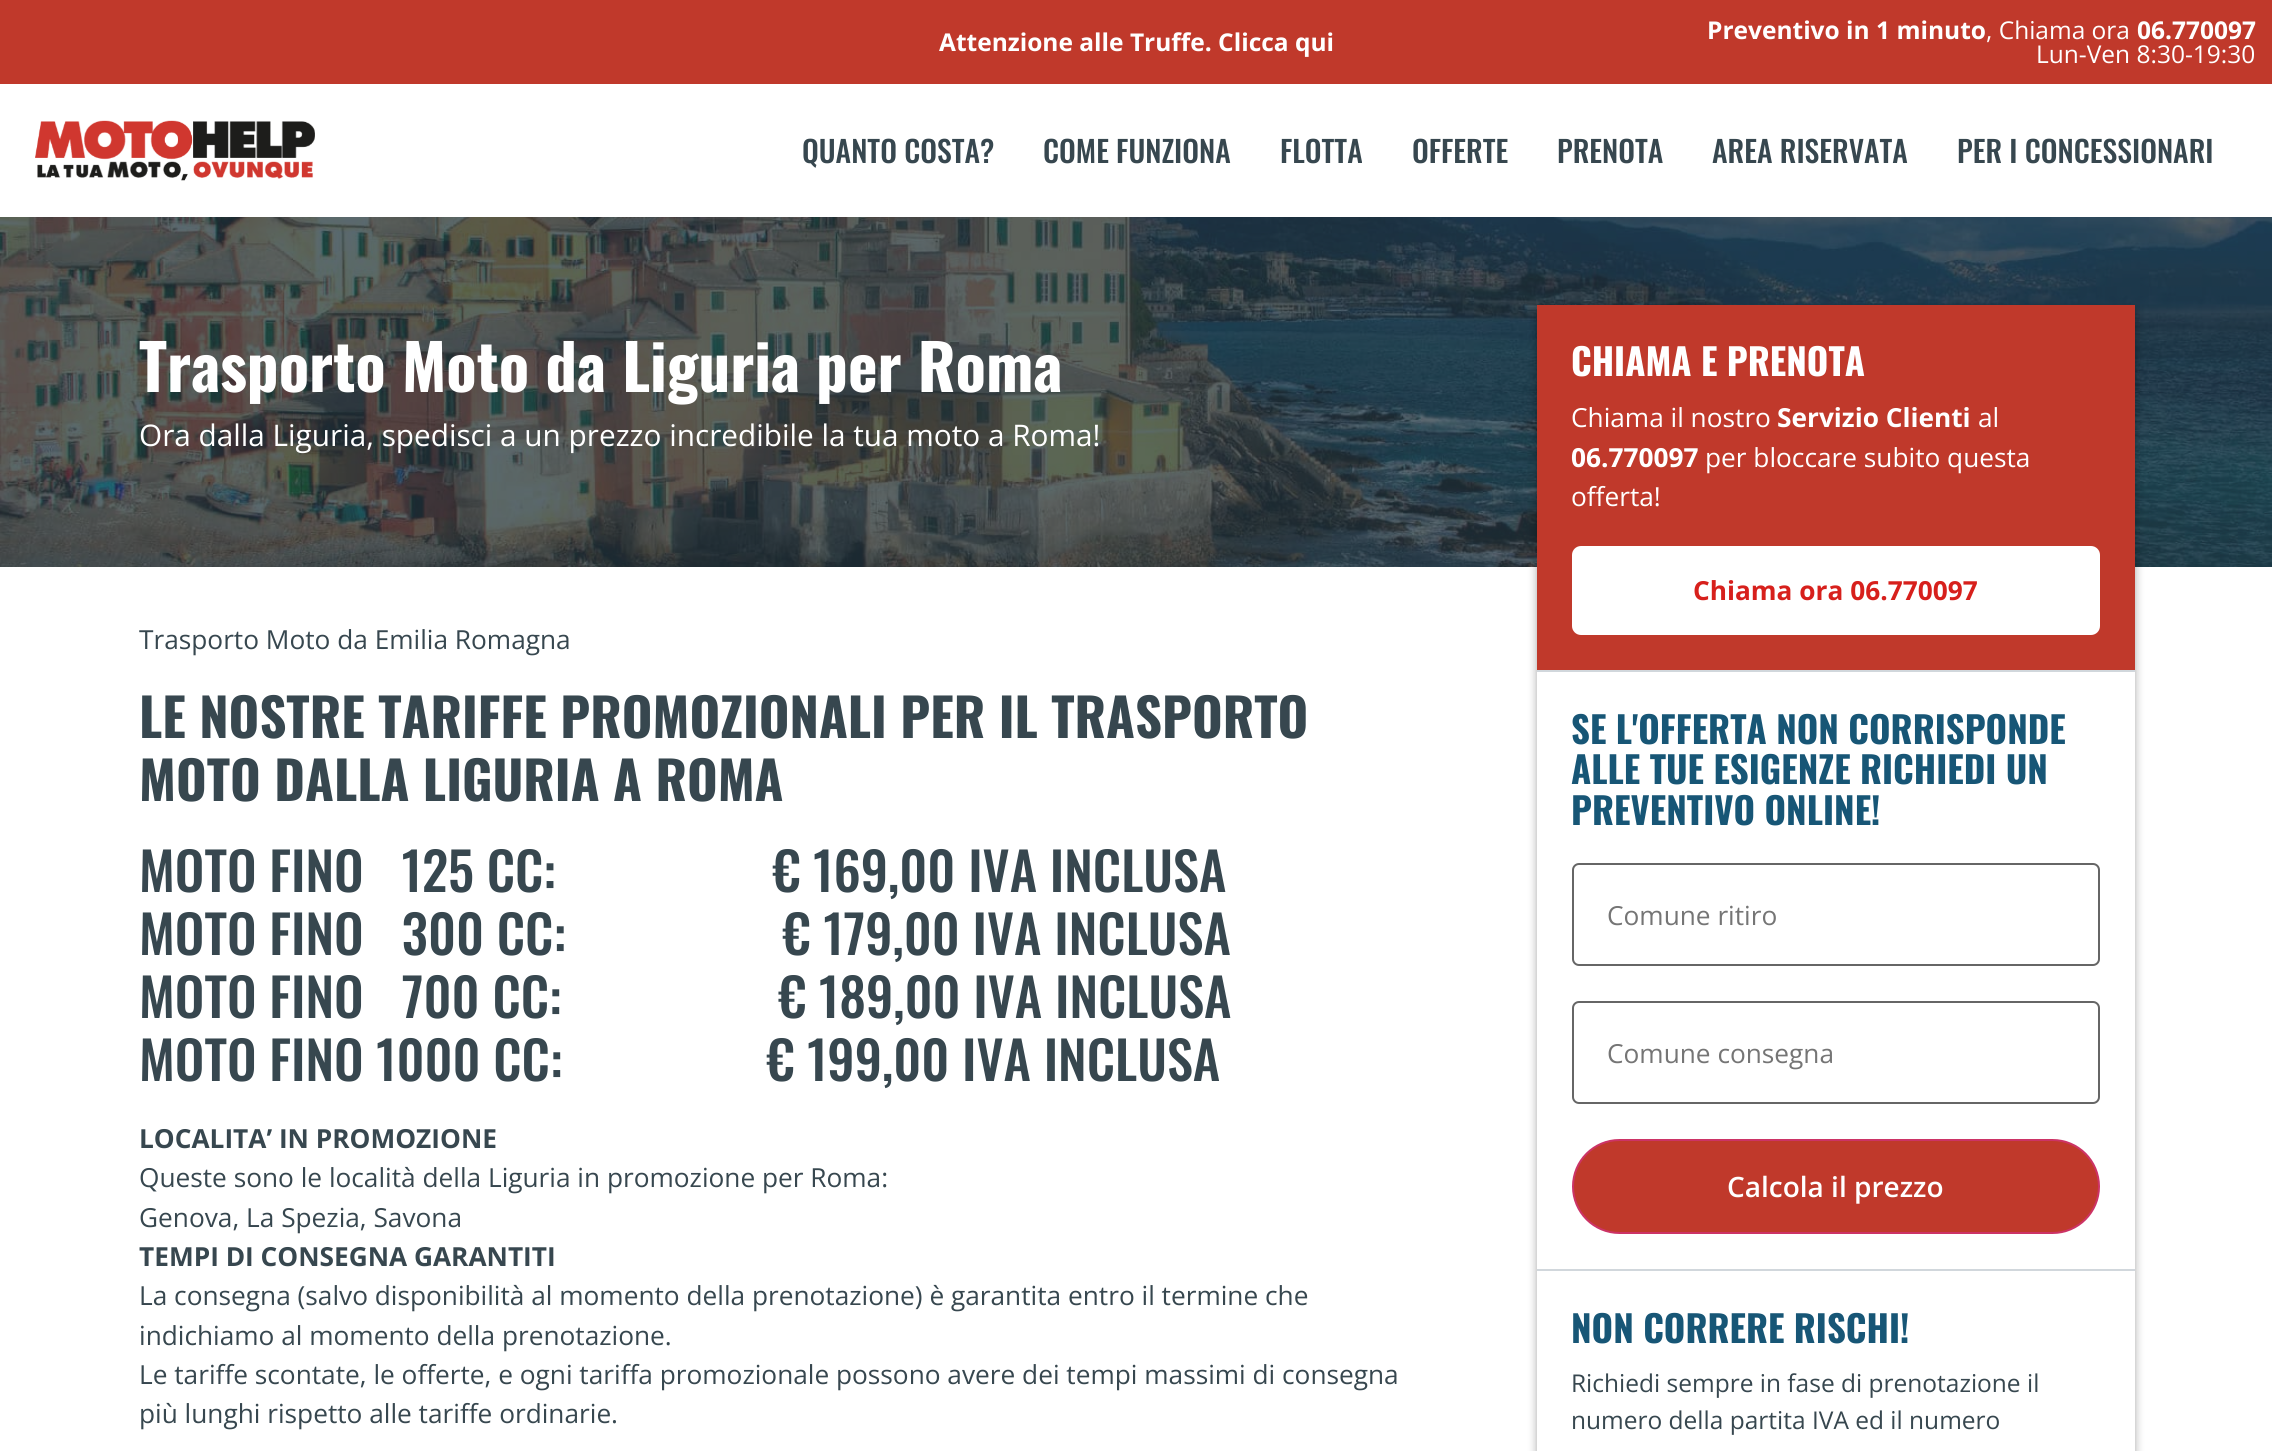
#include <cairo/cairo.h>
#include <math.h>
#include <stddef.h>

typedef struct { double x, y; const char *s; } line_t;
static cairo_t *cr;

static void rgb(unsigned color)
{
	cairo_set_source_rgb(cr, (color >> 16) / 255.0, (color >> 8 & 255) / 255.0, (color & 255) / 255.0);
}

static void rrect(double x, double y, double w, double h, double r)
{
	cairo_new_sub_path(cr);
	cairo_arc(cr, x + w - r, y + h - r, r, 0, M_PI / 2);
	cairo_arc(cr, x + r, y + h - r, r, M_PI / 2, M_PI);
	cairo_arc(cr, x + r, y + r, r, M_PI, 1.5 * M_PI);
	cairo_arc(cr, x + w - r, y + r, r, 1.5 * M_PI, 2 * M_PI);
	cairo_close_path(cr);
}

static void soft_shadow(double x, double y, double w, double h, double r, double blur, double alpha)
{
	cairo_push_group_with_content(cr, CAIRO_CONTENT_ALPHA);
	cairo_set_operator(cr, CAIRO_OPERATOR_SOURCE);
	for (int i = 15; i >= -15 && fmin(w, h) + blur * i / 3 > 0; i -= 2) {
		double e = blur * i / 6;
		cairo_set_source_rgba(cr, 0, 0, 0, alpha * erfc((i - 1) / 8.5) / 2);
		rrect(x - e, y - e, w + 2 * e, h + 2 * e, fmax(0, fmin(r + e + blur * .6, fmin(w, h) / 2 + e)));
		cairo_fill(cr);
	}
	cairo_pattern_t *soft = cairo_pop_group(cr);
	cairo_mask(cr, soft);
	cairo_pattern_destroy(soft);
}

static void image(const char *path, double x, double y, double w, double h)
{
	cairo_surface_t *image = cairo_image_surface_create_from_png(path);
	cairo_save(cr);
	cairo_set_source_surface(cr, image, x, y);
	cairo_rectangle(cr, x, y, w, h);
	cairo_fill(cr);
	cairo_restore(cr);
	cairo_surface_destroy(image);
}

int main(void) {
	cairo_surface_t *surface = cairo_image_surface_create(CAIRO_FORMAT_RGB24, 2272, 1451);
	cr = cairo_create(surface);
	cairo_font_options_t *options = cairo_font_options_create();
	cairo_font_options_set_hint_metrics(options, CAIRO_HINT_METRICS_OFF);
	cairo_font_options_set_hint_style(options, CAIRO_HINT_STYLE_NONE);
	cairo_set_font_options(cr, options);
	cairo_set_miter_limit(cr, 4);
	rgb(0xffffff);
	cairo_paint(cr);
	rgb(0xc0392b);
	cairo_rectangle(cr, 0, 0, 2272, 84);
	cairo_fill(cr);
	image("img/1.png", 35, 120, 280, 61);
	image("img/2.png", 0, 217, 2272, 350);
	cairo_save(cr);
	cairo_set_fill_rule(cr, CAIRO_FILL_RULE_EVEN_ODD);
	cairo_new_path(cr);
	cairo_move_to(cr, 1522, 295);
	cairo_line_to(cr, 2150, 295);
	cairo_line_to(cr, 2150, 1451);
	cairo_line_to(cr, 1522, 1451);
	cairo_close_path(cr);
	cairo_move_to(cr, 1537, 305);
	cairo_line_to(cr, 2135, 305);
	cairo_line_to(cr, 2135, 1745);
	cairo_line_to(cr, 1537, 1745);
	cairo_close_path(cr);
	cairo_clip(cr);
	rgb(0x000000);
	soft_shadow(1537, 310, 598, 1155, 0, 4.5, 0.35);
	cairo_restore(cr);
	cairo_rectangle(cr, 1537, 305, 598, 365);
	cairo_fill(cr);
	rgb(0xd1d7dc);
	cairo_rectangle(cr, 1537, 670, 598, 2);
	cairo_fill(cr);
	rgb(0xffffff);
	rrect(1572, 546, 528, 89, 9);
	cairo_fill(cr);
	rgb(0xd1d7dc);
	cairo_rectangle(cr, 1537, 1269, 598, 2);
	cairo_fill(cr);
	rrect(1573, 864, 526, 101, 6);
	rgb(0x666666);
	cairo_stroke(cr);
	rrect(1573, 1002, 526, 101, 6);
	cairo_stroke(cr);
	rgb(0xc0392b);
	rrect(1573, 1140, 526, 93, 46.5);
	cairo_fill_preserve(cr);
	rgb(0xcc3366);
	cairo_stroke(cr);
	cairo_select_font_face(cr, "Open Sans", CAIRO_FONT_SLANT_NORMAL, CAIRO_FONT_WEIGHT_BOLD);
	cairo_set_font_size(cr, 24.5);
	rgb(0xffffff);
	cairo_move_to(cr, 939, 51);
	cairo_show_text(cr, "Attenzione alle Truffe. Clicca qui");
	cairo_move_to(cr, 1707, 39);
	cairo_show_text(cr, "Preventivo in 1 minuto");
	cairo_select_font_face(cr, "Open Sans", CAIRO_FONT_SLANT_NORMAL, CAIRO_FONT_WEIGHT_NORMAL);
	cairo_move_to(cr, 1986, 39);
	cairo_show_text(cr, ", Chiama ora");
	cairo_select_font_face(cr, "Open Sans", CAIRO_FONT_SLANT_NORMAL, CAIRO_FONT_WEIGHT_BOLD);
	cairo_move_to(cr, 2137, 39);
	cairo_show_text(cr, "06.770097");
	cairo_select_font_face(cr, "Open Sans", CAIRO_FONT_SLANT_NORMAL, CAIRO_FONT_WEIGHT_NORMAL);
	cairo_move_to(cr, 2036, 63);
	cairo_show_text(cr, "Lun-Ven 8:30-19:30");
	cairo_select_font_face(cr, "Oswald Medium", CAIRO_FONT_SLANT_NORMAL, CAIRO_FONT_WEIGHT_NORMAL);
	cairo_set_font_size(cr, 29.75);
	rgb(0x37474f);
	{
		static const line_t items[] = {
			{802, 163, "QUANTO COSTA?"},
			{1043, 163, "COME FUNZIONA"},
			{1280, 163, "FLOTTA"},
			{1412, 163, "OFFERTE"},
			{1557, 163, "PRENOTA"},
			{1712, 163, "AREA RISERVATA"},
			{1957, 163, "PER I CONCESSIONARI"},
		};
		for (size_t i = 0; i < sizeof items / sizeof *items; i++) {
			cairo_move_to(cr, items[i].x, items[i].y);
			cairo_show_text(cr, items[i].s);
		}
	}
	cairo_select_font_face(cr, "Oswald", CAIRO_FONT_SLANT_NORMAL, CAIRO_FONT_WEIGHT_BOLD);
	cairo_set_font_size(cr, 63);
	rgb(0xffffff);
	cairo_move_to(cr, 139, 392);
	cairo_show_text(cr, "Trasporto Moto da Liguria per Roma");
	cairo_select_font_face(cr, "Open Sans", CAIRO_FONT_SLANT_NORMAL, CAIRO_FONT_WEIGHT_NORMAL);
	cairo_set_font_size(cr, 29.75);
	cairo_move_to(cr, 139, 446);
	cairo_show_text(cr, "Ora dalla Liguria, spedisci a un prezzo incredibile la tua moto a Roma!");
	cairo_set_font_size(cr, 26.25);
	rgb(0x37474f);
	cairo_move_to(cr, 139, 649);
	cairo_show_text(cr, "Trasporto Moto da Emilia Romagna");
	cairo_select_font_face(cr, "Oswald", CAIRO_FONT_SLANT_NORMAL, CAIRO_FONT_WEIGHT_BOLD);
	cairo_set_font_size(cr, 52.5);
	cairo_move_to(cr, 139, 738);
	cairo_show_text(cr, "LE NOSTRE TARIFFE PROMOZIONALI PER IL TRASPORTO");
	cairo_move_to(cr, 139, 801);
	cairo_show_text(cr, "MOTO DALLA LIGURIA A ROMA");
	cairo_select_font_face(cr, "Oswald Medium", CAIRO_FONT_SLANT_NORMAL, CAIRO_FONT_WEIGHT_NORMAL);
	{
		static const line_t items[] = {
			{139, 892, "MOTO FINO   125 CC:                 € 169,00 IVA INCLUSA"},
			{139, 955, "MOTO FINO   300 CC:                 € 179,00 IVA INCLUSA"},
			{139, 1018, "MOTO FINO   700 CC:                 € 189,00 IVA INCLUSA"},
			{139, 1081, "MOTO FINO 1000 CC:                € 199,00 IVA INCLUSA"},
		};
		for (size_t i = 0; i < sizeof items / sizeof *items; i++) {
			cairo_move_to(cr, items[i].x, items[i].y);
			cairo_show_text(cr, items[i].s);
		}
	}
	cairo_select_font_face(cr, "Open Sans", CAIRO_FONT_SLANT_NORMAL, CAIRO_FONT_WEIGHT_BOLD);
	cairo_set_font_size(cr, 26.25);
	cairo_move_to(cr, 139, 1148);
	cairo_show_text(cr, "LOCALITA’ IN PROMOZIONE");
	cairo_select_font_face(cr, "Open Sans", CAIRO_FONT_SLANT_NORMAL, CAIRO_FONT_WEIGHT_NORMAL);
	cairo_move_to(cr, 139, 1187);
	cairo_show_text(cr, "Queste sono le località della Liguria in promozione per Roma:");
	cairo_move_to(cr, 139, 1227);
	cairo_show_text(cr, "Genova, La Spezia, Savona");
	cairo_select_font_face(cr, "Open Sans", CAIRO_FONT_SLANT_NORMAL, CAIRO_FONT_WEIGHT_BOLD);
	cairo_move_to(cr, 139, 1266);
	cairo_show_text(cr, "TEMPI DI CONSEGNA GARANTITI");
	cairo_select_font_face(cr, "Open Sans", CAIRO_FONT_SLANT_NORMAL, CAIRO_FONT_WEIGHT_NORMAL);
	{
		static const line_t items[] = {
			{139, 1305, "La consegna (salvo disponibilità al momento della prenotazione) è garantita entro il termine che"},
			{139, 1345, "indichiamo al momento della prenotazione."},
			{139, 1384, "Le tariffe scontate, le offerte, e ogni tariffa promozionale possono avere dei tempi massimi di consegna"},
			{139, 1423, "più lunghi rispetto alle tariffe ordinarie."},
		};
		for (size_t i = 0; i < sizeof items / sizeof *items; i++) {
			cairo_move_to(cr, items[i].x, items[i].y);
			cairo_show_text(cr, items[i].s);
		}
	}
	cairo_select_font_face(cr, "Oswald", CAIRO_FONT_SLANT_NORMAL, CAIRO_FONT_WEIGHT_BOLD);
	cairo_set_font_size(cr, 36.75);
	rgb(0xffffff);
	cairo_move_to(cr, 1571, 376);
	cairo_show_text(cr, "CHIAMA E PRENOTA");
	cairo_select_font_face(cr, "Open Sans", CAIRO_FONT_SLANT_NORMAL, CAIRO_FONT_WEIGHT_NORMAL);
	cairo_set_font_size(cr, 26.25);
	cairo_move_to(cr, 1571, 427);
	cairo_show_text(cr, "Chiama il nostro");
	cairo_select_font_face(cr, "Open Sans", CAIRO_FONT_SLANT_NORMAL, CAIRO_FONT_WEIGHT_BOLD);
	cairo_move_to(cr, 1777, 427);
	cairo_show_text(cr, "Servizio Clienti");
	cairo_select_font_face(cr, "Open Sans", CAIRO_FONT_SLANT_NORMAL, CAIRO_FONT_WEIGHT_NORMAL);
	cairo_move_to(cr, 1978, 427);
	cairo_show_text(cr, "al");
	cairo_select_font_face(cr, "Open Sans", CAIRO_FONT_SLANT_NORMAL, CAIRO_FONT_WEIGHT_BOLD);
	cairo_move_to(cr, 1571, 467);
	cairo_show_text(cr, "06.770097");
	cairo_select_font_face(cr, "Open Sans", CAIRO_FONT_SLANT_NORMAL, CAIRO_FONT_WEIGHT_NORMAL);
	cairo_move_to(cr, 1705, 467);
	cairo_show_text(cr, "per bloccare subito questa");
	cairo_move_to(cr, 1571, 506);
	cairo_show_text(cr, "offerta!");
	cairo_select_font_face(cr, "Open Sans", CAIRO_FONT_SLANT_NORMAL, CAIRO_FONT_WEIGHT_BOLD);
	rgb(0xd7201c);
	cairo_move_to(cr, 1693, 600);
	cairo_show_text(cr, "Chiama ora 06.770097");
	cairo_select_font_face(cr, "Oswald", CAIRO_FONT_SLANT_NORMAL, CAIRO_FONT_WEIGHT_BOLD);
	cairo_set_font_size(cr, 36.75);
	rgb(0x175676);
	{
		static const line_t items[] = {
			{1571, 744, "SE L'OFFERTA NON CORRISPONDE"},
			{1571, 784, "ALLE TUE ESIGENZE RICHIEDI UN"},
			{1571, 825, "PREVENTIVO ONLINE!"},
		};
		for (size_t i = 0; i < sizeof items / sizeof *items; i++) {
			cairo_move_to(cr, items[i].x, items[i].y);
			cairo_show_text(cr, items[i].s);
		}
	}
	cairo_select_font_face(cr, "Open Sans", CAIRO_FONT_SLANT_NORMAL, CAIRO_FONT_WEIGHT_NORMAL);
	cairo_set_font_size(cr, 26.25);
	rgb(0x757575);
	cairo_move_to(cr, 1607, 925);
	cairo_show_text(cr, "Comune ritiro");
	cairo_move_to(cr, 1607, 1063);
	cairo_show_text(cr, "Comune consegna");
	cairo_select_font_face(cr, "Open Sans SemiBold", CAIRO_FONT_SLANT_NORMAL, CAIRO_FONT_WEIGHT_NORMAL);
	cairo_set_font_size(cr, 28);
	rgb(0xffffff);
	cairo_move_to(cr, 1727, 1197);
	cairo_show_text(cr, "Calcola il prezzo");
	cairo_select_font_face(cr, "Oswald", CAIRO_FONT_SLANT_NORMAL, CAIRO_FONT_WEIGHT_BOLD);
	cairo_set_font_size(cr, 36.75);
	rgb(0x175676);
	cairo_move_to(cr, 1571, 1343);
	cairo_show_text(cr, "NON CORRERE RISCHI!");
	cairo_select_font_face(cr, "Open Sans", CAIRO_FONT_SLANT_NORMAL, CAIRO_FONT_WEIGHT_NORMAL);
	cairo_set_font_size(cr, 24.5);
	rgb(0x37474f);
	cairo_move_to(cr, 1571, 1392);
	cairo_show_text(cr, "Richiedi sempre in fase di prenotazione il");
	cairo_move_to(cr, 1571, 1429);
	cairo_show_text(cr, "numero della partita IVA ed il numero");
	cairo_surface_write_to_png(surface, "page.png");
	cairo_font_options_destroy(options);
	cairo_destroy(cr);
	cairo_surface_destroy(surface);
	return 0;
}
